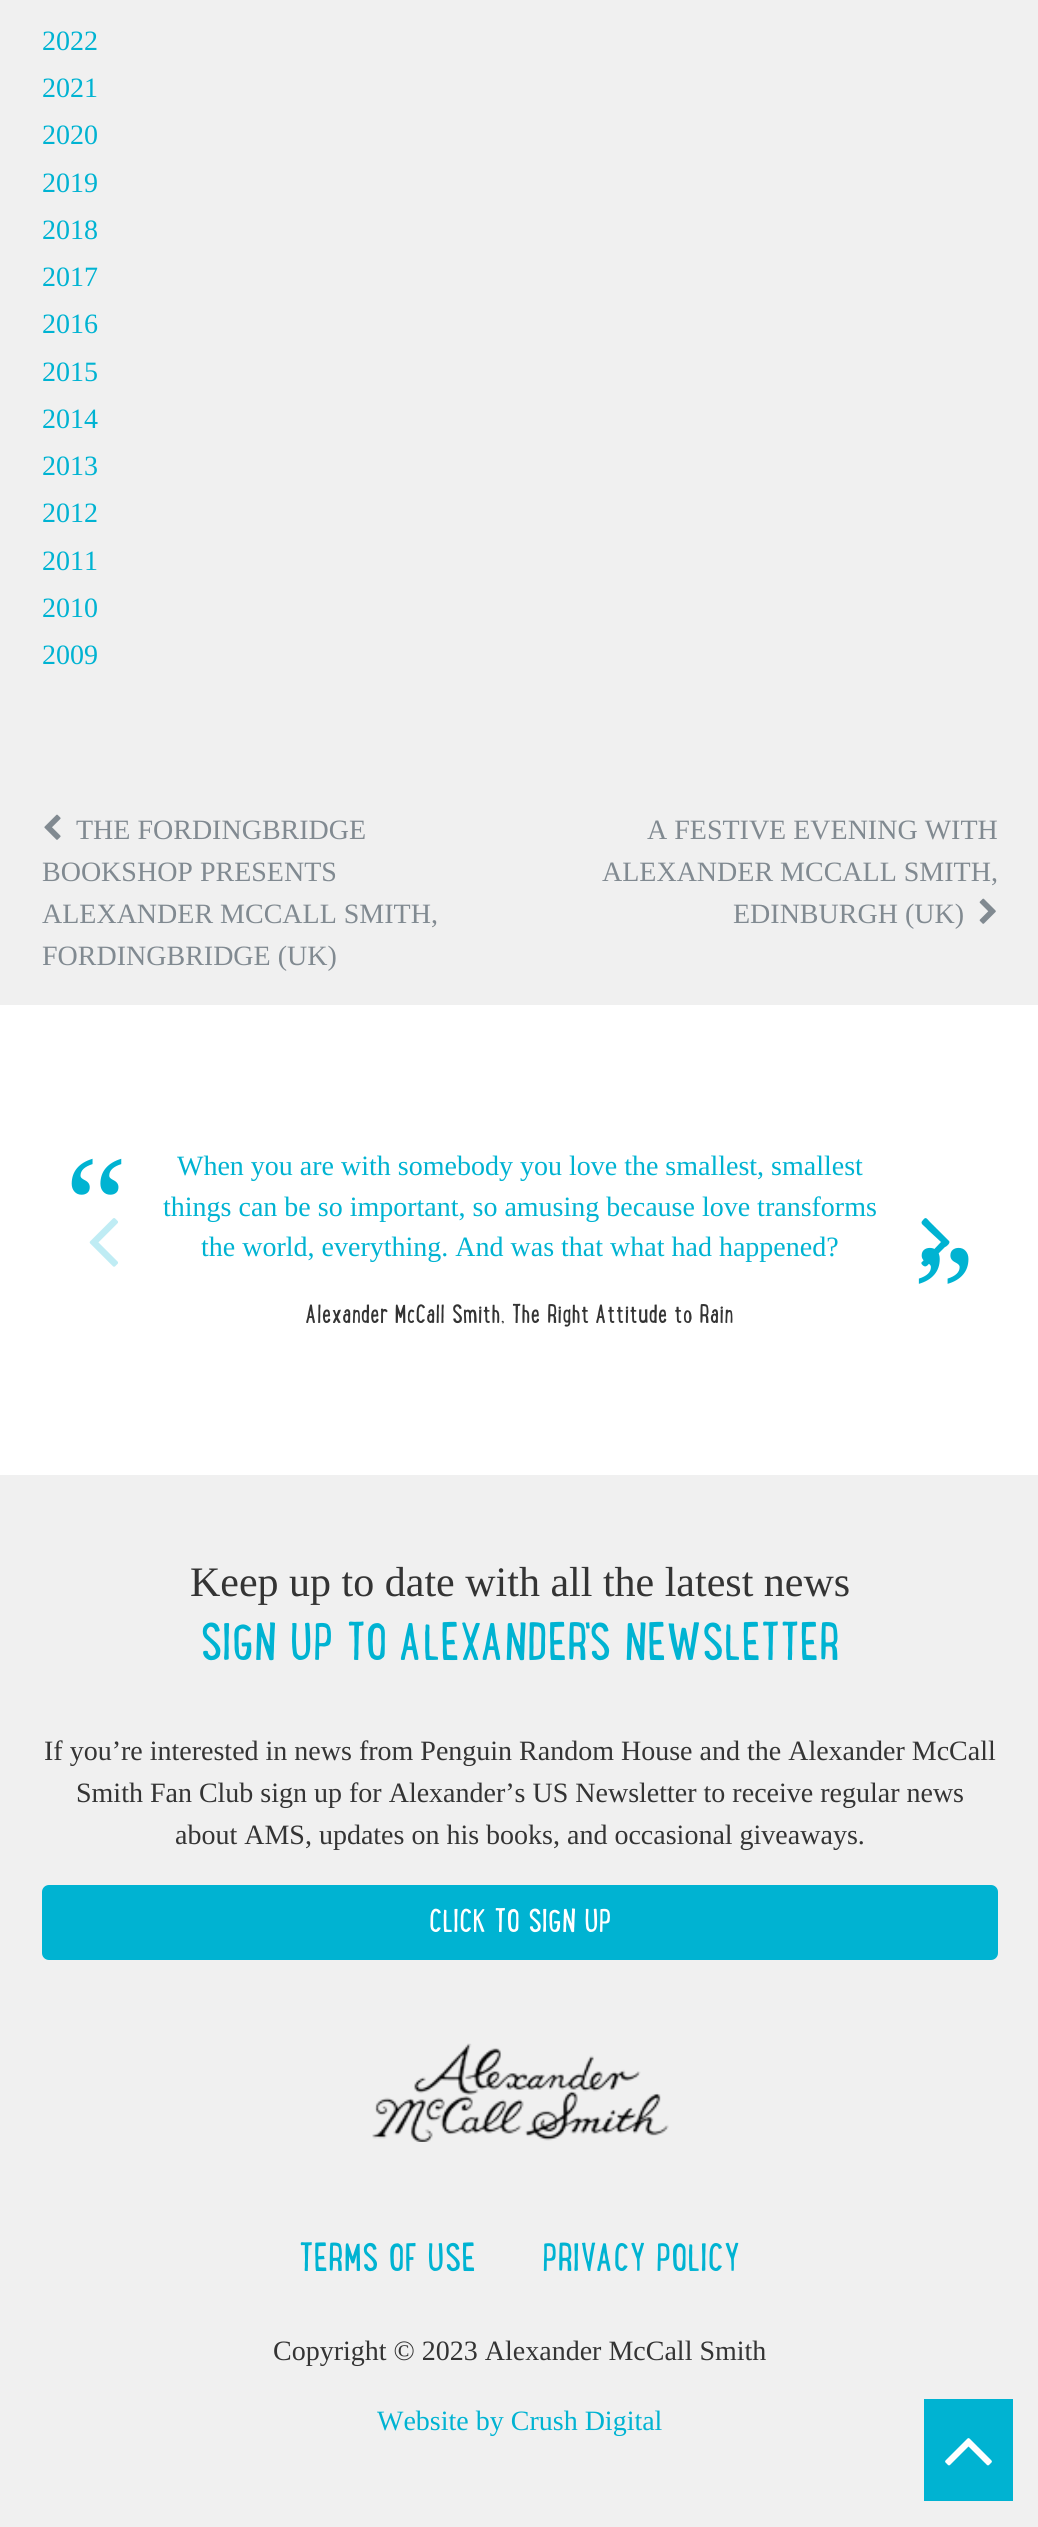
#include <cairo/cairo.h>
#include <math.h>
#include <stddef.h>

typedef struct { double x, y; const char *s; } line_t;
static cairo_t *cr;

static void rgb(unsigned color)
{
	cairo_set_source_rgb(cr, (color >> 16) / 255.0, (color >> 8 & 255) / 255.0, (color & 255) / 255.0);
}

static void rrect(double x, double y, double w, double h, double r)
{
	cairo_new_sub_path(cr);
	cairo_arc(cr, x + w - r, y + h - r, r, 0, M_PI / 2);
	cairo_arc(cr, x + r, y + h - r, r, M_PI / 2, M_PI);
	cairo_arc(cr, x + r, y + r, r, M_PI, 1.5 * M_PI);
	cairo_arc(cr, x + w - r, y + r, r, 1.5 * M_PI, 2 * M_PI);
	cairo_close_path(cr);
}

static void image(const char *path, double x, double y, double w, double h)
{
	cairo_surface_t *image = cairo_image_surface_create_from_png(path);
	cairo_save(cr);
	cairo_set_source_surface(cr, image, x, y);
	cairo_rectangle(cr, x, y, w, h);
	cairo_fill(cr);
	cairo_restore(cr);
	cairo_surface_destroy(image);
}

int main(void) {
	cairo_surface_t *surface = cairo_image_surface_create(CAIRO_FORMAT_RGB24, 1038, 2527);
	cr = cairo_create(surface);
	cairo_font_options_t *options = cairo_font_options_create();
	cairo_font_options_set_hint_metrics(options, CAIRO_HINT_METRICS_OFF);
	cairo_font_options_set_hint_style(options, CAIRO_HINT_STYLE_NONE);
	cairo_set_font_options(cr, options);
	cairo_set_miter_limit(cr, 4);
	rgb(0xf0f0f0);
	cairo_paint(cr);
	image("img/1.png", 44, 814, 17, 26);
	image("img/2.png", 979, 898, 17, 26);
	rgb(0xffffff);
	cairo_rectangle(cr, 0, 1005, 1038, 470);
	cairo_fill(cr);
	image("img/3.png", 89, 1218, 29, 49);
	rgb(0x00b3d2);
	cairo_new_path(cr);
	cairo_move_to(cr, 949, 1241);
	cairo_curve_to(cr, 951, 1243, 946, 1247, 945, 1247);
	cairo_line_to(cr, 930, 1262);
	cairo_curve_to(cr, 930, 1263, 926, 1268, 924, 1266);
	cairo_curve_to(cr, 923, 1266, 920, 1263, 922, 1262);
	cairo_line_to(cr, 941, 1242);
	cairo_line_to(cr, 928, 1230);
	cairo_curve_to(cr, 924, 1225, 919, 1224, 923, 1220);
	cairo_curve_to(cr, 926, 1216, 927, 1219, 930, 1222);
	cairo_close_path(cr);
	cairo_fill(cr);
	rrect(43, 1886, 954, 73, 6);
	cairo_fill_preserve(cr);
	cairo_stroke(cr);
	image("img/4.png", 372, 2043, 297, 99);
	cairo_rectangle(cr, 924, 2399, 89, 102);
	cairo_fill(cr);
	image("img/5.png", 945, 2438, 47, 28);
	cairo_select_font_face(cr, "Liberation Serif", CAIRO_FONT_SLANT_NORMAL, CAIRO_FONT_WEIGHT_NORMAL);
	cairo_set_font_size(cr, 28);
	{
		static const line_t items[] = {
			{42, 50, "2022"},
			{42, 97, "2021"},
			{42, 144, "2020"},
			{42, 192, "2019"},
			{42, 239, "2018"},
			{42, 286, "2017"},
			{42, 333, "2016"},
			{42, 381, "2015"},
			{42, 428, "2014"},
			{42, 475, "2013"},
			{42, 522, "2012"},
			{42, 570, "2011"},
			{42, 617, "2010"},
			{42, 664, "2009"},
		};
		for (size_t i = 0; i < sizeof items / sizeof *items; i++) {
			cairo_move_to(cr, items[i].x, items[i].y);
			cairo_show_text(cr, items[i].s);
		}
	}
	rgb(0x818a91);
	{
		static const line_t items[] = {
			{76, 839, "THE FORDINGBRIDGE"},
			{42, 881, "BOOKSHOP PRESENTS"},
			{42, 923, "ALEXANDER MCCALL SMITH,"},
			{42, 965, "FORDINGBRIDGE (UK)"},
			{647, 839, "A FESTIVE EVENING WITH"},
			{602, 881, "ALEXANDER MCCALL SMITH,"},
			{733, 923, "EDINBURGH (UK)"},
		};
		for (size_t i = 0; i < sizeof items / sizeof *items; i++) {
			cairo_move_to(cr, items[i].x, items[i].y);
			cairo_show_text(cr, items[i].s);
		}
	}
	cairo_set_font_size(cr, 140);
	rgb(0x00b3d2);
	cairo_move_to(cr, 65, 1252);
	cairo_show_text(cr, "“");
	cairo_set_font_size(cr, 28);
	{
		static const line_t items[] = {
			{177, 1175, "When you are with somebody you love the smallest, smallest"},
			{163, 1216, "things can be so important, so amusing because love transforms"},
			{201, 1256, "the world, everything. And was that what had happened?"},
		};
		for (size_t i = 0; i < sizeof items / sizeof *items; i++) {
			cairo_move_to(cr, items[i].x, items[i].y);
			cairo_show_text(cr, items[i].s);
		}
	}
	cairo_set_font_size(cr, 140);
	cairo_move_to(cr, 913, 1341);
	cairo_show_text(cr, "”");
	cairo_select_font_face(cr, "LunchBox", CAIRO_FONT_SLANT_NORMAL, CAIRO_FONT_WEIGHT_NORMAL);
	cairo_set_font_size(cr, 28);
	rgb(0x343434);
	cairo_move_to(cr, 306, 1323);
	cairo_show_text(cr, "Alexander McCall Smith, The Right Attitude to Rain");
	cairo_select_font_face(cr, "Liberation Serif", CAIRO_FONT_SLANT_NORMAL, CAIRO_FONT_WEIGHT_NORMAL);
	cairo_set_font_size(cr, 42);
	cairo_move_to(cr, 190, 1596);
	cairo_show_text(cr, "Keep up to date with all the latest news");
	cairo_select_font_face(cr, "LunchBox", CAIRO_FONT_SLANT_NORMAL, CAIRO_FONT_WEIGHT_NORMAL);
	cairo_set_font_size(cr, 56);
	rgb(0x00b3d2);
	cairo_move_to(cr, 200, 1660);
	cairo_show_text(cr, "SIGN UP TO ALEXANDER'S NEWSLETTER");
	cairo_select_font_face(cr, "Liberation Serif", CAIRO_FONT_SLANT_NORMAL, CAIRO_FONT_WEIGHT_NORMAL);
	cairo_set_font_size(cr, 28);
	rgb(0x343434);
	{
		static const line_t items[] = {
			{44, 1760, "If you’re interested in news from Penguin Random House and the Alexander McCall"},
			{76, 1802, "Smith Fan Club sign up for Alexander’s US Newsletter to receive regular news"},
			{175, 1844, "about AMS, updates on his books, and occasional giveaways."},
		};
		for (size_t i = 0; i < sizeof items / sizeof *items; i++) {
			cairo_move_to(cr, items[i].x, items[i].y);
			cairo_show_text(cr, items[i].s);
		}
	}
	cairo_select_font_face(cr, "LunchBox", CAIRO_FONT_SLANT_NORMAL, CAIRO_FONT_WEIGHT_NORMAL);
	cairo_set_font_size(cr, 35);
	rgb(0xffffff);
	cairo_move_to(cr, 429, 1932);
	cairo_show_text(cr, "CLICK TO SIGN UP");
	cairo_set_font_size(cr, 42);
	rgb(0x00b3d2);
	cairo_move_to(cr, 299, 2271);
	cairo_show_text(cr, "TERMS OF USE");
	cairo_move_to(cr, 542, 2271);
	cairo_show_text(cr, "PRIVACY POLICY");
	cairo_select_font_face(cr, "Liberation Serif", CAIRO_FONT_SLANT_NORMAL, CAIRO_FONT_WEIGHT_NORMAL);
	cairo_set_font_size(cr, 28);
	rgb(0x343434);
	cairo_move_to(cr, 273, 2360);
	cairo_show_text(cr, "Copyright © 2023 Alexander McCall Smith");
	rgb(0x00b3d2);
	cairo_move_to(cr, 377, 2430);
	cairo_show_text(cr, "Website by Crush Digital");
	cairo_surface_write_to_png(surface, "page.png");
	cairo_font_options_destroy(options);
	cairo_destroy(cr);
	cairo_surface_destroy(surface);
	return 0;
}
